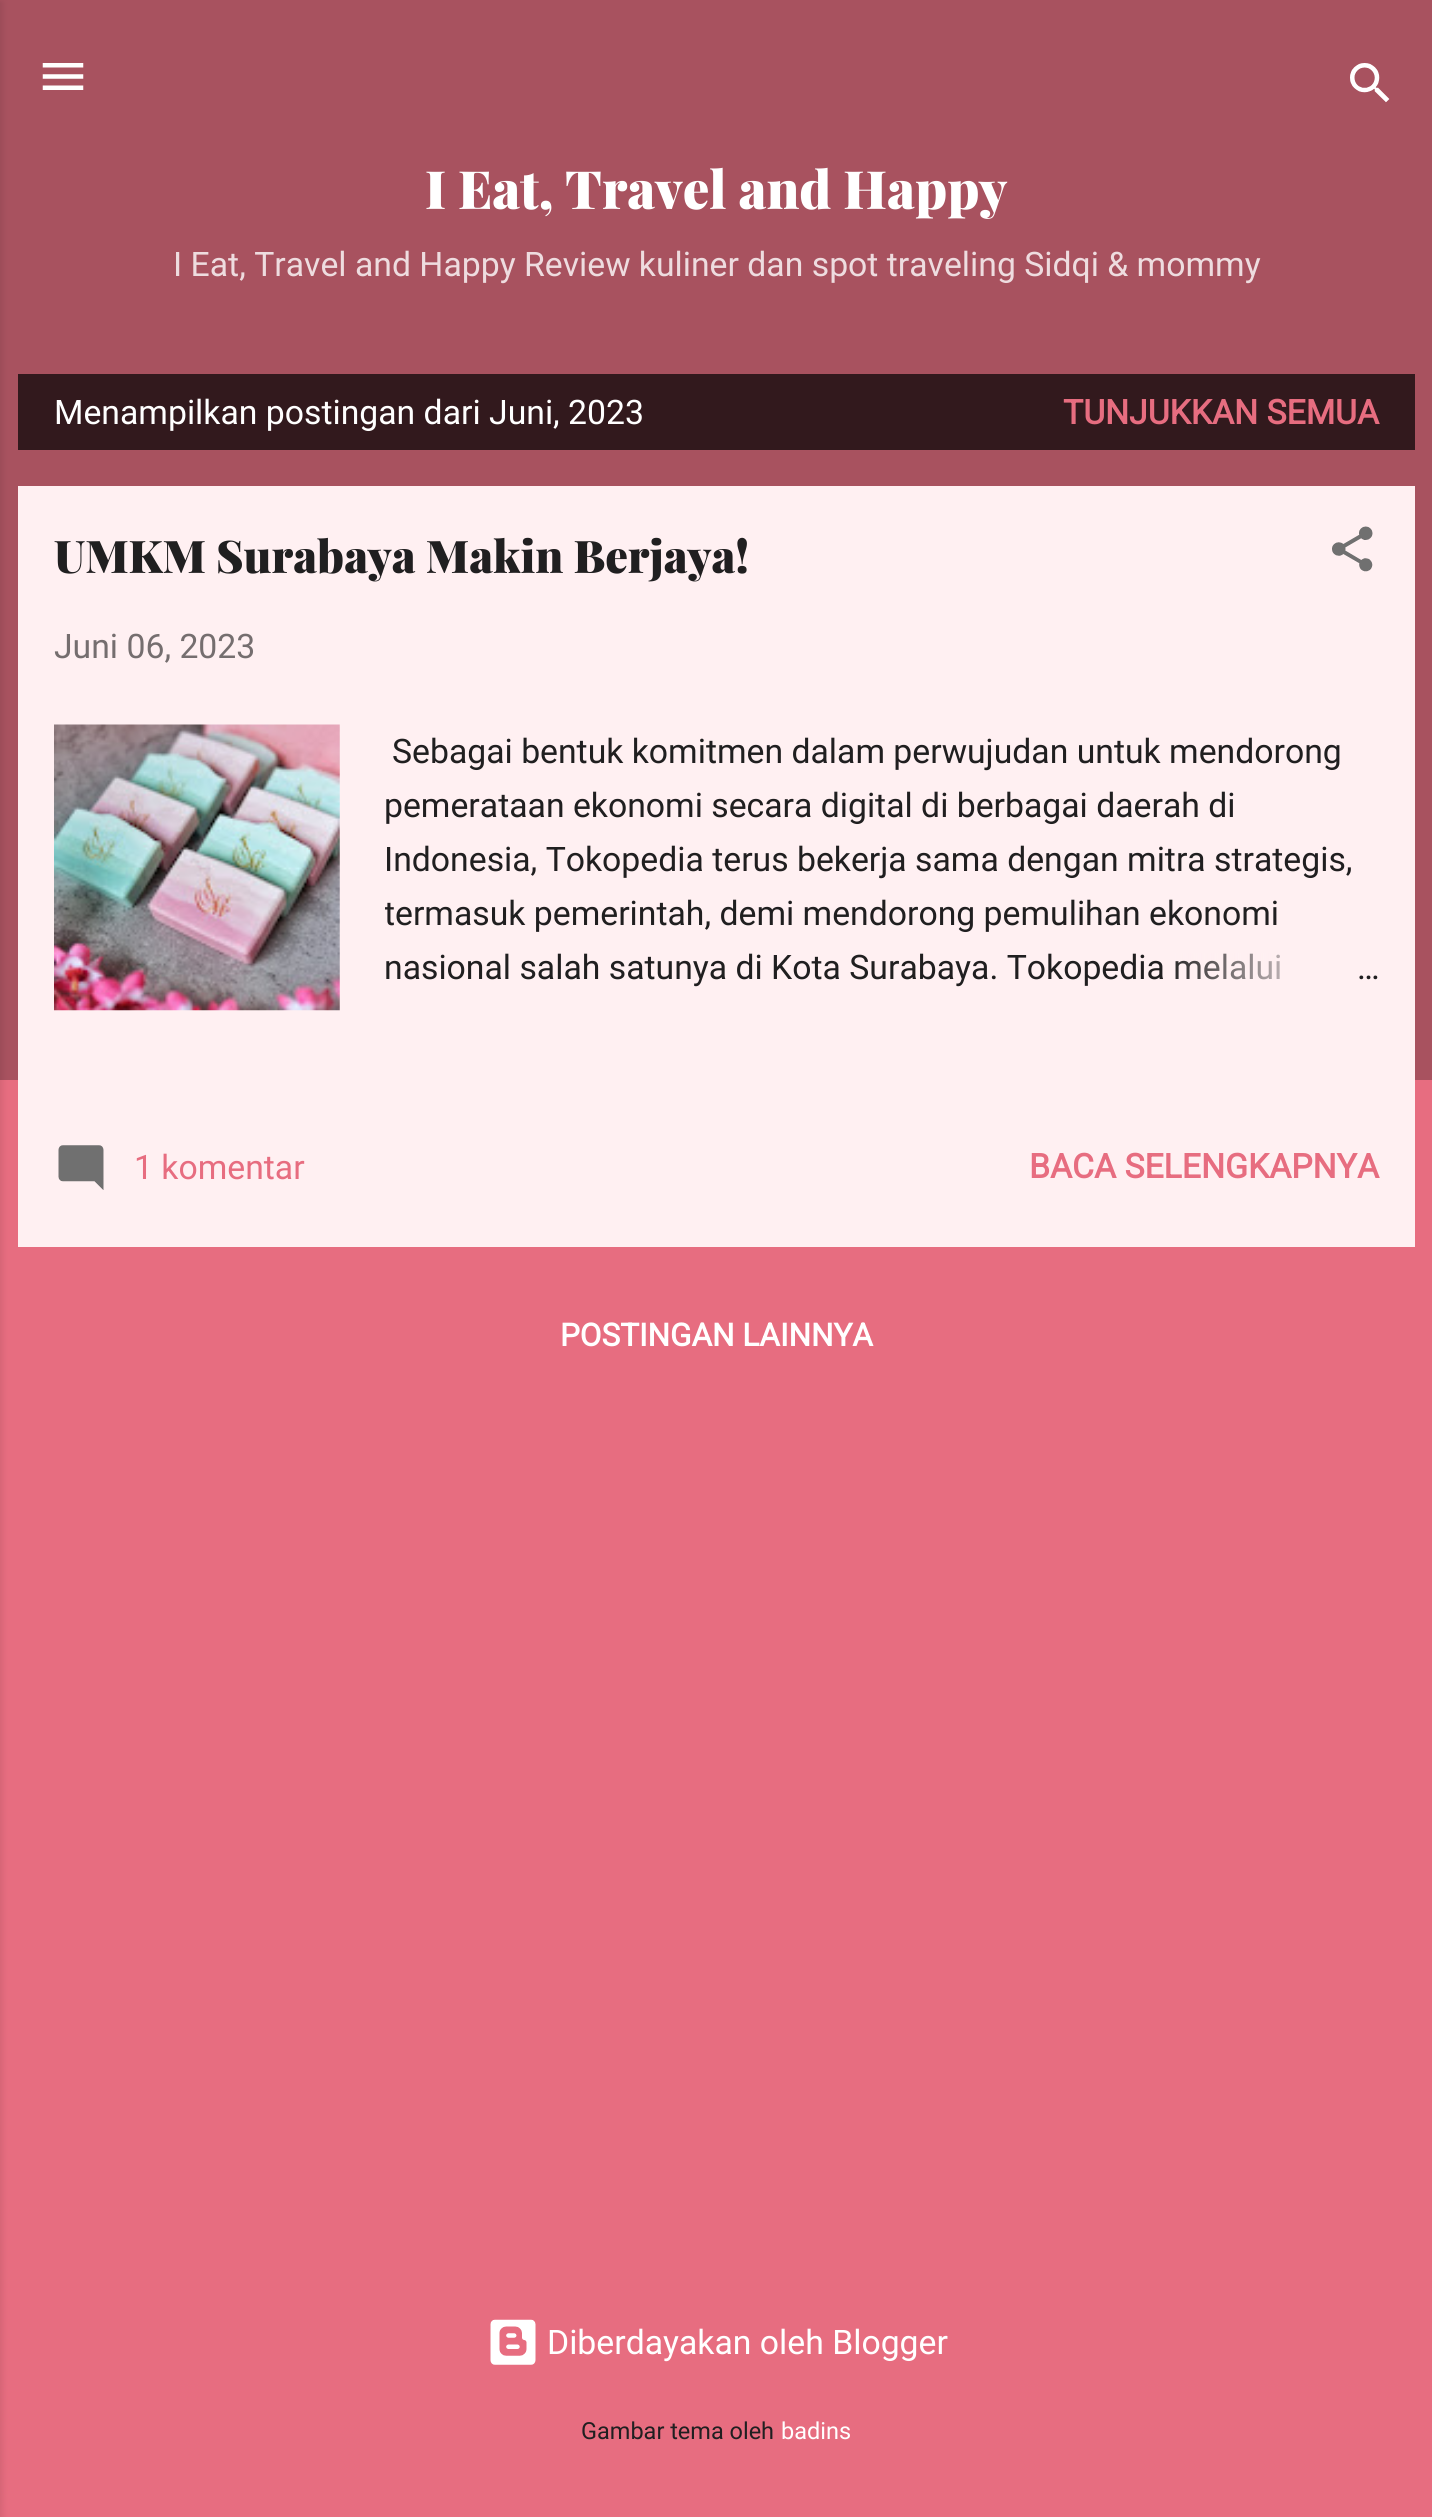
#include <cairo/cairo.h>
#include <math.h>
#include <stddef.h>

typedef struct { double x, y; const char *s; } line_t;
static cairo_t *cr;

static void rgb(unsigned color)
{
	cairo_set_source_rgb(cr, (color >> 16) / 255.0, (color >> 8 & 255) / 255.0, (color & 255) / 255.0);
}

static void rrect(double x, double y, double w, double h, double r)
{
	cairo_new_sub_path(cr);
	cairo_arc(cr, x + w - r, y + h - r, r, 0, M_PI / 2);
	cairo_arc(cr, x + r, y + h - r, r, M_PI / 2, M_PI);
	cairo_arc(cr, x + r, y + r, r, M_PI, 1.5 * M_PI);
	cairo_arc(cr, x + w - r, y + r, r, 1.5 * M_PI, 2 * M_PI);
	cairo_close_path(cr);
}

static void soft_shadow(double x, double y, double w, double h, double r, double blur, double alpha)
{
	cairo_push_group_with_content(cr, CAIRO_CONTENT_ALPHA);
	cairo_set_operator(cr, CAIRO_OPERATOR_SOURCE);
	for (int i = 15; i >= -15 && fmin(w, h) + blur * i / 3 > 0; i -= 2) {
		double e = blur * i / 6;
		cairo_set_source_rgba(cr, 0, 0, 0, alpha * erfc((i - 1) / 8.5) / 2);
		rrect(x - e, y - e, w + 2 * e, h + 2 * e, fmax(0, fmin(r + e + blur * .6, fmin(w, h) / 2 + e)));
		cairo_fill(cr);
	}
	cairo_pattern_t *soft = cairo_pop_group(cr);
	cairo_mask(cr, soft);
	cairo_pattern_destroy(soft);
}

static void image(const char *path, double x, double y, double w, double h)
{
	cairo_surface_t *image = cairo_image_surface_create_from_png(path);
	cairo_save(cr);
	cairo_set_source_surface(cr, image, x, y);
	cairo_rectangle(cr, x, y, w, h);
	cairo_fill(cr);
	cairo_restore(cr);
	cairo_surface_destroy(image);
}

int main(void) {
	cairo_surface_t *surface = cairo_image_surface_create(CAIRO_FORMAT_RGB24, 1432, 2517);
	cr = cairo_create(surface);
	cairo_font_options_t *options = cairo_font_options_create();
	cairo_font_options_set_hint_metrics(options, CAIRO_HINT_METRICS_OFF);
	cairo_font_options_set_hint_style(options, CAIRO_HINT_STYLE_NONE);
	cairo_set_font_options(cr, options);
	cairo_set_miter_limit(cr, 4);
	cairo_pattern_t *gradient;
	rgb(0xe76d80);
	cairo_paint(cr);
	rgb(0xa8525f);
	cairo_rectangle(cr, 0, 0, 1432, 1080);
	cairo_fill(cr);
	rgb(0x000000);
	soft_shadow(-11, 2, 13, 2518, 0, 3.5, 0.1);
	image("img/1.png", 42, 63, 42, 27);
	image("img/2.png", 1350, 63, 40, 40);
	rgb(0x32191d);
	cairo_rectangle(cr, 18, 374, 1397, 76);
	cairo_fill(cr);
	rgb(0xfff0f2);
	cairo_rectangle(cr, 18, 486, 1397, 761);
	cairo_fill(cr);
	image("img/3.png", 1332, 526, 41, 46);
	image("img/4.png", 54, 724, 286, 287);
	image("img/5.png", 58, 1145, 46, 45);
	image("img/6.png", 490, 2319, 46, 46);
	cairo_select_font_face(cr, "Playfair Display Black", CAIRO_FONT_SLANT_NORMAL, CAIRO_FONT_WEIGHT_NORMAL);
	cairo_set_font_size(cr, 52.75);
	rgb(0xffffff);
	cairo_move_to(cr, 425, 209);
	cairo_show_text(cr, "I Eat, Travel and Happy");
	cairo_select_font_face(cr, "Roboto", CAIRO_FONT_SLANT_NORMAL, CAIRO_FONT_WEIGHT_NORMAL);
	cairo_set_font_size(cr, 33.75);
	rgb(0xeedcdf);
	cairo_move_to(cr, 173, 276);
	cairo_show_text(cr, "I Eat, Travel and Happy Review kuliner dan spot traveling Sidqi & mommy");
	rgb(0xffffff);
	cairo_move_to(cr, 54, 424);
	cairo_show_text(cr, "Menampilkan postingan dari Juni, 2023");
	cairo_select_font_face(cr, "Roboto", CAIRO_FONT_SLANT_NORMAL, CAIRO_FONT_WEIGHT_BOLD);
	rgb(0xe76d80);
	cairo_move_to(cr, 1063, 424);
	cairo_show_text(cr, "TUNJUKKAN SEMUA");
	cairo_select_font_face(cr, "Playfair Display Black", CAIRO_FONT_SLANT_NORMAL, CAIRO_FONT_WEIGHT_NORMAL);
	cairo_set_font_size(cr, 45);
	rgb(0x201f20);
	cairo_move_to(cr, 54, 573);
	cairo_show_text(cr, "UMKM Surabaya Makin Berjaya!");
	cairo_select_font_face(cr, "Roboto", CAIRO_FONT_SLANT_NORMAL, CAIRO_FONT_WEIGHT_NORMAL);
	cairo_set_font_size(cr, 33.75);
	rgb(0x756e6f);
	cairo_move_to(cr, 54, 658);
	cairo_show_text(cr, "Juni 06, 2023");
	rgb(0x201f20);
	{
		static const line_t items[] = {
			{392, 763, "Sebagai bentuk komitmen dalam perwujudan untuk mendorong"},
			{384, 817, "pemerataan ekonomi secara digital di berbagai daerah di"},
			{384, 871, "Indonesia, Tokopedia terus bekerja sama dengan mitra strategis,"},
		};
		for (size_t i = 0; i < sizeof items / sizeof *items; i++) {
			cairo_move_to(cr, items[i].x, items[i].y);
			cairo_show_text(cr, items[i].s);
		}
	}
	cairo_save(cr);
	cairo_rectangle(cr, 385, 725, 994, 270);
	cairo_clip(cr);
	cairo_move_to(cr, 384, 925);
	cairo_show_text(cr, "termasuk pemerintah, demi mendorong pemulihan ekonomi");
	cairo_restore(cr);
	cairo_move_to(cr, 384, 979);
	cairo_show_text(cr, "nasional salah satunya di Kota Surabaya. Tokopedia melalui");
	gradient = cairo_pattern_create_linear(1379, 968, 1163, 968);
	cairo_pattern_add_color_stop_rgba(gradient, 0, 1, 0.941, 0.949, 1);
	cairo_pattern_add_color_stop_rgba(gradient, 0.2, 1, 0.941, 0.949, 1);
	cairo_pattern_add_color_stop_rgba(gradient, 1, 1, 0.941, 0.949, 0);
	cairo_set_source(cr, gradient);
	cairo_pattern_destroy(gradient);
	cairo_rectangle(cr, 1175, 953, 105, 27);
	cairo_fill(cr);
	rgb(0x201f20);
	cairo_move_to(cr, 1357, 979);
	cairo_show_text(cr, "…");
	rgb(0xe76d80);
	cairo_move_to(cr, 134, 1179);
	cairo_show_text(cr, "1 komentar");
	cairo_select_font_face(cr, "Roboto", CAIRO_FONT_SLANT_NORMAL, CAIRO_FONT_WEIGHT_BOLD);
	cairo_move_to(cr, 1029, 1178);
	cairo_show_text(cr, "BACA SELENGKAPNYA");
	cairo_set_font_size(cr, 31.5);
	rgb(0xffffff);
	cairo_move_to(cr, 560, 1346);
	cairo_show_text(cr, "POSTINGAN LAINNYA");
	cairo_select_font_face(cr, "Roboto", CAIRO_FONT_SLANT_NORMAL, CAIRO_FONT_WEIGHT_NORMAL);
	cairo_set_font_size(cr, 33.75);
	cairo_move_to(cr, 547, 2354);
	cairo_show_text(cr, "Diberdayakan oleh Blogger");
	cairo_set_font_size(cr, 23.5);
	rgb(0x201f20);
	cairo_move_to(cr, 581, 2439);
	cairo_show_text(cr, "Gambar tema oleh");
	rgb(0xffffff);
	cairo_move_to(cr, 781, 2439);
	cairo_show_text(cr, "badins");
	cairo_surface_write_to_png(surface, "page.png");
	cairo_font_options_destroy(options);
	cairo_destroy(cr);
	cairo_surface_destroy(surface);
	return 0;
}
